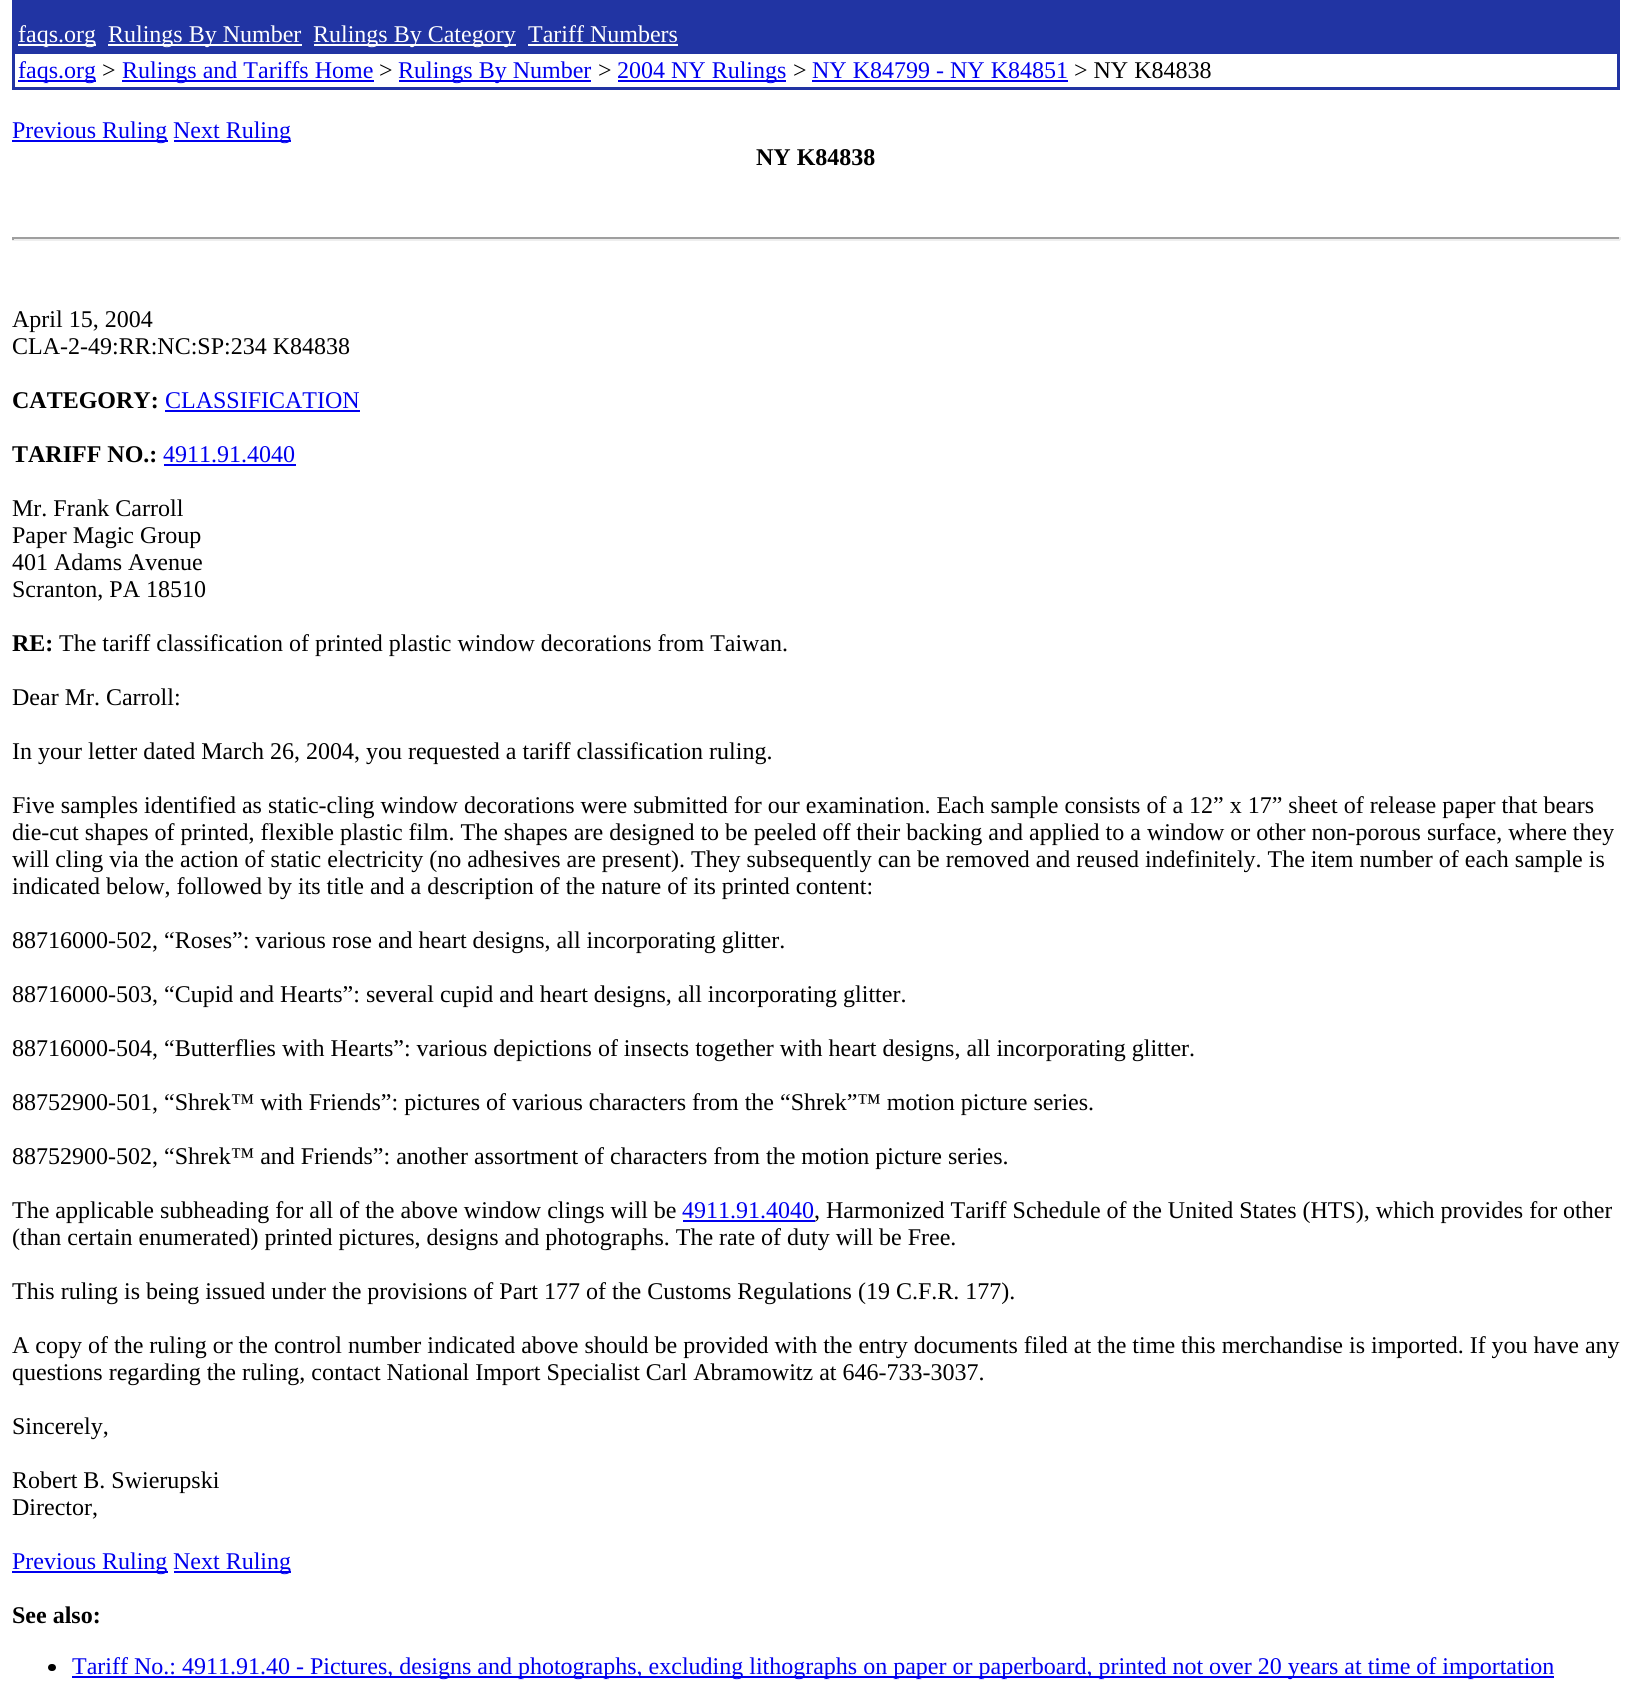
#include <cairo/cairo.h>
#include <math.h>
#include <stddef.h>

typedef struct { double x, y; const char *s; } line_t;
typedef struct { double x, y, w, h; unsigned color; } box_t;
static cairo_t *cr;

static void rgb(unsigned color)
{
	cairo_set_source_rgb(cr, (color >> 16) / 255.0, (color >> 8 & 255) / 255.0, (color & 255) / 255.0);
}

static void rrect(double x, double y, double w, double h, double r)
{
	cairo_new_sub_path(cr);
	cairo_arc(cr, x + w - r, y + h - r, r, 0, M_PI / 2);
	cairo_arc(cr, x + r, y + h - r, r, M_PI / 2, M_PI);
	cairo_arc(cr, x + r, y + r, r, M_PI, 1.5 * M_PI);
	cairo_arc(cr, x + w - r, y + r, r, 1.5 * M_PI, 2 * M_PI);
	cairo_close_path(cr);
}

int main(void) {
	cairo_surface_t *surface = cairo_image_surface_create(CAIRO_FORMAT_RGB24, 1631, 1701);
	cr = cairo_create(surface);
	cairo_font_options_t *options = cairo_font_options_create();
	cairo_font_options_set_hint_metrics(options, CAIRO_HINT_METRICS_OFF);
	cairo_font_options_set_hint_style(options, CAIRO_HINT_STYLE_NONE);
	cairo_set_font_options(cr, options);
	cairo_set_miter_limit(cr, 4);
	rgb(0xffffff);
	cairo_paint(cr);
	{
		static const box_t items[] = {
			{12, 0, 1608, 90, 0x2134a3},
			{18, 44, 78, 2, 0xffffff},
			{108, 44, 194, 2, 0xffffff},
			{314, 44, 202, 2, 0xffffff},
			{528, 44, 150, 2, 0xffffff},
			{15, 54, 1602, 33, 0xffffff},
			{18, 80, 78, 2, 0x0000ee},
			{122, 80, 252, 2, 0x0000ee},
			{399, 80, 192, 2, 0x0000ee},
			{618, 80, 168, 2, 0x0000ee},
			{812, 80, 256, 2, 0x0000ee},
			{12, 140, 156, 2, 0x0000ee},
			{174, 140, 117, 2, 0x0000ee},
			{12, 237, 1608, 2, 0x9f9f9f},
			{1619, 237, 2, 3, 0xeeeeee},
			{12, 239, 1608, 2, 0xeeeeee},
			{12, 237, 2, 3, 0x9f9f9f},
			{165, 410, 195, 2, 0x0000ee},
			{164, 464, 132, 2, 0x0000ee},
			{683, 1220, 132, 2, 0x0000ee},
			{12, 1571, 156, 2, 0x0000ee},
			{174, 1571, 117, 2, 0x0000ee},
		};
		for (size_t i = 0; i < sizeof items / sizeof *items; i++) {
			rgb(items[i].color);
			cairo_rectangle(cr, items[i].x, items[i].y, items[i].w, items[i].h);
			cairo_fill(cr);
		}
	}
	rgb(0x000000);
	rrect(48, 1664, 8, 7, 3.5);
	cairo_fill(cr);
	rgb(0x0000ee);
	cairo_rectangle(cr, 72, 1676, 1482, 2);
	cairo_fill(cr);
	cairo_select_font_face(cr, "Liberation Serif", CAIRO_FONT_SLANT_NORMAL, CAIRO_FONT_WEIGHT_NORMAL);
	cairo_set_font_size(cr, 24);
	rgb(0xffffff);
	{
		static const line_t items[] = {
			{18, 42, "faqs.org"},
			{108, 42, "Rulings By Number"},
			{313, 42, "Rulings By Category"},
			{528, 42, "Tariff Numbers"},
		};
		for (size_t i = 0; i < sizeof items / sizeof *items; i++) {
			cairo_move_to(cr, items[i].x, items[i].y);
			cairo_show_text(cr, items[i].s);
		}
	}
	rgb(0x0000ee);
	cairo_move_to(cr, 18, 78);
	cairo_show_text(cr, "faqs.org");
	rgb(0x000000);
	cairo_move_to(cr, 102, 78);
	cairo_show_text(cr, ">");
	rgb(0x0000ee);
	cairo_move_to(cr, 122, 78);
	cairo_show_text(cr, "Rulings and Tariffs Home");
	rgb(0x000000);
	cairo_move_to(cr, 379, 78);
	cairo_show_text(cr, ">");
	rgb(0x0000ee);
	cairo_move_to(cr, 398, 78);
	cairo_show_text(cr, "Rulings By Number");
	rgb(0x000000);
	cairo_move_to(cr, 598, 78);
	cairo_show_text(cr, ">");
	rgb(0x0000ee);
	cairo_move_to(cr, 617, 78);
	cairo_show_text(cr, "2004 NY Rulings");
	rgb(0x000000);
	cairo_move_to(cr, 793, 78);
	cairo_show_text(cr, ">");
	rgb(0x0000ee);
	cairo_move_to(cr, 812, 78);
	cairo_show_text(cr, "NY K84799 - NY K84851");
	rgb(0x000000);
	cairo_move_to(cr, 1074, 78);
	cairo_show_text(cr, "> NY K84838");
	rgb(0x0000ee);
	cairo_move_to(cr, 12, 138);
	cairo_show_text(cr, "Previous Ruling");
	cairo_move_to(cr, 173, 138);
	cairo_show_text(cr, "Next Ruling");
	cairo_select_font_face(cr, "Liberation Serif", CAIRO_FONT_SLANT_NORMAL, CAIRO_FONT_WEIGHT_BOLD);
	rgb(0x000000);
	cairo_move_to(cr, 756, 165);
	cairo_show_text(cr, "NY K84838");
	cairo_select_font_face(cr, "Liberation Serif", CAIRO_FONT_SLANT_NORMAL, CAIRO_FONT_WEIGHT_NORMAL);
	cairo_move_to(cr, 12, 327);
	cairo_show_text(cr, "April 15, 2004");
	cairo_move_to(cr, 12, 354);
	cairo_show_text(cr, "CLA-2-49:RR:NC:SP:234 K84838");
	cairo_select_font_face(cr, "Liberation Serif", CAIRO_FONT_SLANT_NORMAL, CAIRO_FONT_WEIGHT_BOLD);
	cairo_move_to(cr, 12, 408);
	cairo_show_text(cr, "CATEGORY:");
	cairo_select_font_face(cr, "Liberation Serif", CAIRO_FONT_SLANT_NORMAL, CAIRO_FONT_WEIGHT_NORMAL);
	rgb(0x0000ee);
	cairo_move_to(cr, 165, 408);
	cairo_show_text(cr, "CLASSIFICATION");
	cairo_select_font_face(cr, "Liberation Serif", CAIRO_FONT_SLANT_NORMAL, CAIRO_FONT_WEIGHT_BOLD);
	rgb(0x000000);
	cairo_move_to(cr, 12, 462);
	cairo_show_text(cr, "TARIFF NO.:");
	cairo_select_font_face(cr, "Liberation Serif", CAIRO_FONT_SLANT_NORMAL, CAIRO_FONT_WEIGHT_NORMAL);
	rgb(0x0000ee);
	cairo_move_to(cr, 163, 462);
	cairo_show_text(cr, "4911.91.4040");
	rgb(0x000000);
	{
		static const line_t items[] = {
			{12, 516, "Mr. Frank Carroll"},
			{12, 543, "Paper Magic Group"},
			{12, 570, "401 Adams Avenue"},
			{12, 597, "Scranton, PA 18510"},
		};
		for (size_t i = 0; i < sizeof items / sizeof *items; i++) {
			cairo_move_to(cr, items[i].x, items[i].y);
			cairo_show_text(cr, items[i].s);
		}
	}
	cairo_select_font_face(cr, "Liberation Serif", CAIRO_FONT_SLANT_NORMAL, CAIRO_FONT_WEIGHT_BOLD);
	cairo_move_to(cr, 12, 651);
	cairo_show_text(cr, "RE:");
	cairo_select_font_face(cr, "Liberation Serif", CAIRO_FONT_SLANT_NORMAL, CAIRO_FONT_WEIGHT_NORMAL);
	{
		static const line_t items[] = {
			{59, 651, "The tariff classification of printed plastic window decorations from Taiwan."},
			{12, 705, "Dear Mr. Carroll:"},
			{12, 759, "In your letter dated March 26, 2004, you requested a tariff classification ruling."},
			{12, 813, "Five samples identified as static-cling window decorations were submitted for our examination. Each sample consists of a 12” x 17” sheet of release paper that bears"},
			{12, 840, "die-cut shapes of printed, flexible plastic film. The shapes are designed to be peeled off their backing and applied to a window or other non-porous surface, where they"},
			{12, 867, "will cling via the action of static electricity (no adhesives are present). They subsequently can be removed and reused indefinitely. The item number of each sample is"},
			{12, 894, "indicated below, followed by its title and a description of the nature of its printed content:"},
			{12, 948, "88716000-502, “Roses”: various rose and heart designs, all incorporating glitter."},
			{12, 1002, "88716000-503, “Cupid and Hearts”: several cupid and heart designs, all incorporating glitter."},
			{12, 1056, "88716000-504, “Butterflies with Hearts”: various depictions of insects together with heart designs, all incorporating glitter."},
			{12, 1110, "88752900-501, “Shrek™ with Friends”: pictures of various characters from the “Shrek”™ motion picture series."},
			{12, 1164, "88752900-502, “Shrek™ and Friends”: another assortment of characters from the motion picture series."},
			{12, 1218, "The applicable subheading for all of the above window clings will be"},
		};
		for (size_t i = 0; i < sizeof items / sizeof *items; i++) {
			cairo_move_to(cr, items[i].x, items[i].y);
			cairo_show_text(cr, items[i].s);
		}
	}
	rgb(0x0000ee);
	cairo_move_to(cr, 682, 1218);
	cairo_show_text(cr, "4911.91.4040");
	rgb(0x000000);
	{
		static const line_t items[] = {
			{814, 1218, ", Harmonized Tariff Schedule of the United States (HTS), which provides for other"},
			{12, 1245, "(than certain enumerated) printed pictures, designs and photographs. The rate of duty will be Free."},
			{12, 1299, "This ruling is being issued under the provisions of Part 177 of the Customs Regulations (19 C.F.R. 177)."},
			{12, 1353, "A copy of the ruling or the control number indicated above should be provided with the entry documents filed at the time this merchandise is imported. If you have any"},
			{12, 1380, "questions regarding the ruling, contact National Import Specialist Carl Abramowitz at 646-733-3037."},
			{12, 1434, "Sincerely,"},
			{12, 1488, "Robert B. Swierupski"},
			{12, 1515, "Director,"},
		};
		for (size_t i = 0; i < sizeof items / sizeof *items; i++) {
			cairo_move_to(cr, items[i].x, items[i].y);
			cairo_show_text(cr, items[i].s);
		}
	}
	rgb(0x0000ee);
	cairo_move_to(cr, 12, 1569);
	cairo_show_text(cr, "Previous Ruling");
	cairo_move_to(cr, 173, 1569);
	cairo_show_text(cr, "Next Ruling");
	cairo_select_font_face(cr, "Liberation Serif", CAIRO_FONT_SLANT_NORMAL, CAIRO_FONT_WEIGHT_BOLD);
	rgb(0x000000);
	cairo_move_to(cr, 12, 1623);
	cairo_show_text(cr, "See also:");
	cairo_select_font_face(cr, "Liberation Serif", CAIRO_FONT_SLANT_NORMAL, CAIRO_FONT_WEIGHT_NORMAL);
	rgb(0x0000ee);
	cairo_move_to(cr, 72, 1674);
	cairo_show_text(cr, "Tariff No.: 4911.91.40 - Pictures, designs and photographs, excluding lithographs on paper or paperboard, printed not over 20 years at time of importation");
	cairo_surface_write_to_png(surface, "page.png");
	cairo_font_options_destroy(options);
	cairo_destroy(cr);
	cairo_surface_destroy(surface);
	return 0;
}
